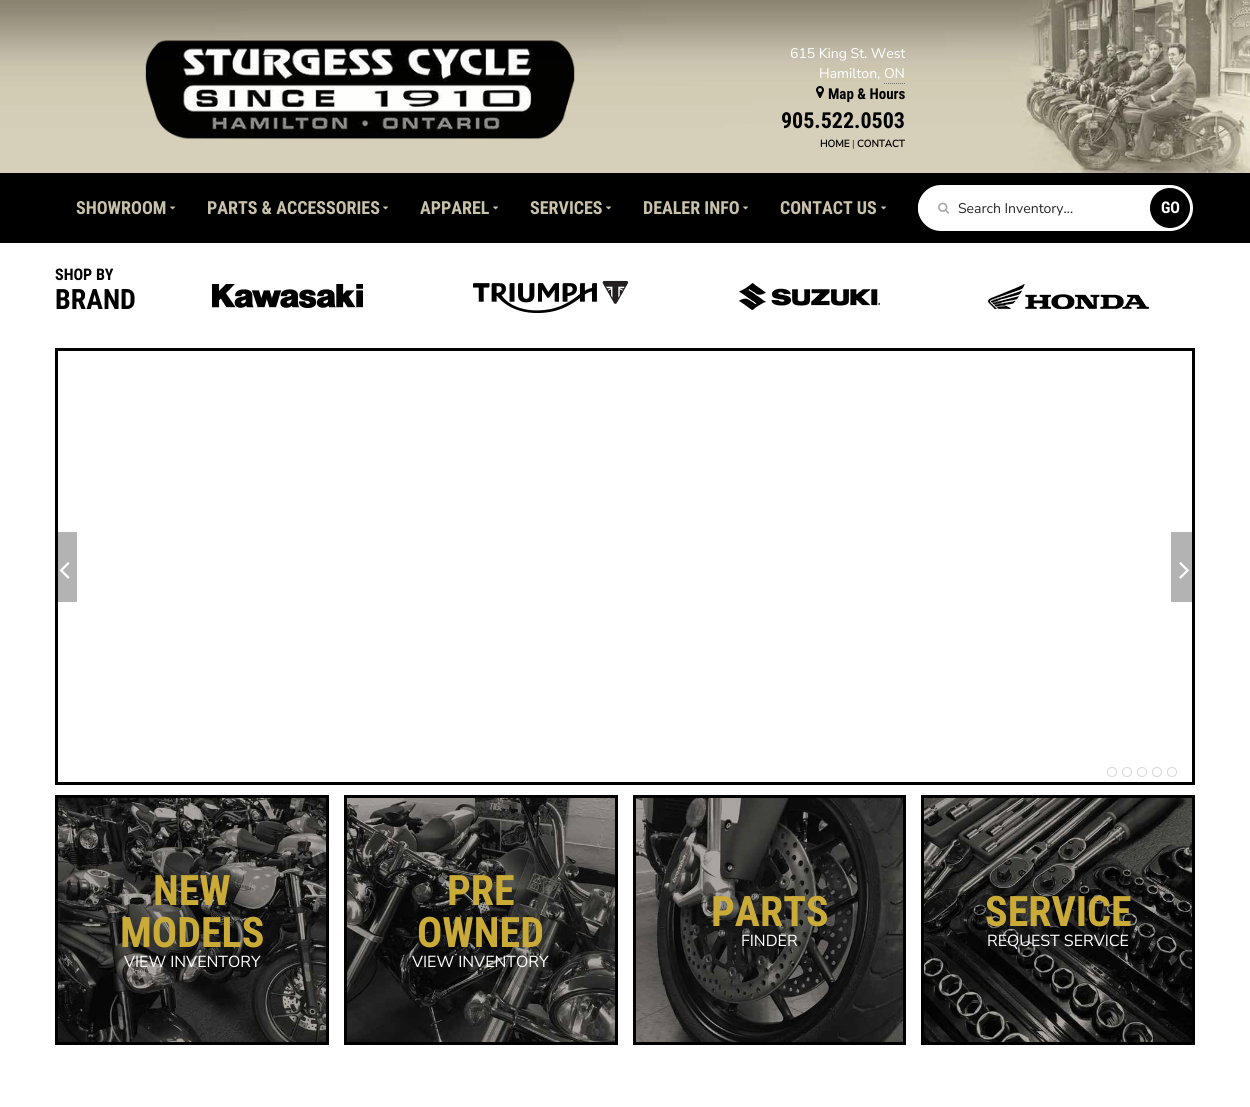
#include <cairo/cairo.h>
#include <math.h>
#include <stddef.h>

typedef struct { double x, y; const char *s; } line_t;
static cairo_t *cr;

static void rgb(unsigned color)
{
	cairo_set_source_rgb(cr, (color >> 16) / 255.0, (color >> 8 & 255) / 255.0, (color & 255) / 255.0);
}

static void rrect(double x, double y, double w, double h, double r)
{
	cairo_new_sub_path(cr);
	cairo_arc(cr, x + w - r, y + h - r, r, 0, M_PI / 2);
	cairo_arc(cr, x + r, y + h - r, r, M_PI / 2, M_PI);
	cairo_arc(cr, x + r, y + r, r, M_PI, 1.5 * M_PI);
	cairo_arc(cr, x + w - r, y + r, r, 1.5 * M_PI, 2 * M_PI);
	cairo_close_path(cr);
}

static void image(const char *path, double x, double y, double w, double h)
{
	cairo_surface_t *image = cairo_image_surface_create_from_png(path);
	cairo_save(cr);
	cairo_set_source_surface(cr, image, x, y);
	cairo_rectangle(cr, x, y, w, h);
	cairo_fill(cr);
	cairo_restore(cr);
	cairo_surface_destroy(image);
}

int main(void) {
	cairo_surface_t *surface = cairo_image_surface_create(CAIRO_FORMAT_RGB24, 1250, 1107);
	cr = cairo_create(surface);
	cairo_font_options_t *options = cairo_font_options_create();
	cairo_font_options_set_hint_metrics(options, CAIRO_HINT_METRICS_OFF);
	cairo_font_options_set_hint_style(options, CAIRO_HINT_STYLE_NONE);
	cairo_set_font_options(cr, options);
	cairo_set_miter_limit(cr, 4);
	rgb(0xffffff);
	cairo_paint(cr);
	image("img/1.png", 0, 0, 1250, 173);
	image("img/2.png", 145, 40, 430, 99);
	cairo_new_path(cr);
	cairo_move_to(cr, 884, 83.5);
	cairo_line_to(cr, 905, 83.5);
	rgb(0x777777);
	cairo_set_line_width(cr, 1);
	cairo_set_dash(cr, (double[]){1, 1}, 2, 0);
	cairo_stroke(cr);
	image("img/3.png", 816, 86, 8, 12);
	rgb(0x000000);
	cairo_rectangle(cr, 0, 173, 1250, 70);
	cairo_fill(cr);
	image("img/4.png", 170, 206, 6, 4);
	image("img/4.png", 383, 206, 6, 4);
	image("img/4.png", 493, 206, 6, 4);
	image("img/4.png", 606, 206, 6, 4);
	image("img/4.png", 743, 206, 6, 4);
	image("img/4.png", 881, 206, 6, 4);
	rgb(0xffffff);
	rrect(918, 185, 275, 46, 23);
	cairo_fill(cr);
	rrect(918, 188, 232, 40, 20);
	cairo_fill(cr);
	image("img/5.png", 938, 202, 11, 12);
	rgb(0x000000);
	cairo_arc(cr, 1170, 208, 20, 0, 2 * M_PI);
	cairo_fill(cr);
	image("img/6.png", 212, 284, 151, 24);
	image("img/7.png", 473, 280, 156, 33);
	image("img/8.png", 739, 283, 141, 27);
	image("img/9.png", 988, 284, 161, 25);
	cairo_rectangle(cr, 56.5, 349.5, 1137, 434);
	cairo_set_line_width(cr, 3);
	cairo_set_dash(cr, NULL, 0, 0);
	cairo_stroke(cr);
	cairo_set_source_rgba(cr, 0, 0, 0, 0.3);
	cairo_rectangle(cr, 58, 532, 19, 70);
	cairo_fill(cr);
	image("img/10.png", 59, 562, 11, 17);
	cairo_rectangle(cr, 1171, 532, 21, 70);
	cairo_fill(cr);
	image("img/11.png", 1179, 562, 10, 17);
	cairo_arc(cr, 1112, 772, 4.5, 0, 2 * M_PI);
	rgb(0xd6d6d5);
	cairo_set_line_width(cr, 1);
	cairo_stroke(cr);
	cairo_arc(cr, 1127, 772, 4.5, 0, 2 * M_PI);
	cairo_stroke(cr);
	cairo_arc(cr, 1142, 772, 4.5, 0, 2 * M_PI);
	cairo_stroke(cr);
	cairo_arc(cr, 1157, 772, 4.5, 0, 2 * M_PI);
	cairo_stroke(cr);
	cairo_arc(cr, 1172, 772, 4.5, 0, 2 * M_PI);
	cairo_stroke(cr);
	image("img/12.png", 58, 798, 268, 244);
	cairo_rectangle(cr, 56.5, 796.5, 271, 247);
	rgb(0x000000);
	cairo_set_line_width(cr, 3);
	cairo_stroke(cr);
	image("img/13.png", 347, 798, 268, 244);
	cairo_rectangle(cr, 345.5, 796.5, 271, 247);
	cairo_stroke(cr);
	image("img/14.png", 636, 798, 267, 244);
	cairo_rectangle(cr, 634.5, 796.5, 270, 247);
	cairo_stroke(cr);
	image("img/15.png", 924, 798, 268, 244);
	cairo_rectangle(cr, 922.5, 796.5, 271, 247);
	cairo_stroke(cr);
	cairo_select_font_face(cr, "Nunito Sans ExtraLight", CAIRO_FONT_SLANT_NORMAL, CAIRO_FONT_WEIGHT_NORMAL);
	cairo_set_font_size(cr, 14);
	rgb(0xffffff);
	cairo_move_to(cr, 790, 58);
	cairo_show_text(cr, "615 King St. West");
	cairo_move_to(cr, 819, 78);
	cairo_show_text(cr, "Hamilton, ON");
	cairo_select_font_face(cr, "Roboto Condensed", CAIRO_FONT_SLANT_NORMAL, CAIRO_FONT_WEIGHT_BOLD);
	cairo_set_font_size(cr, 15);
	rgb(0x000000);
	cairo_move_to(cr, 828, 99);
	cairo_show_text(cr, "Map & Hours");
	cairo_set_font_size(cr, 22);
	cairo_move_to(cr, 781, 128);
	cairo_show_text(cr, "905.522.0503");
	cairo_select_font_face(cr, "Nunito Sans", CAIRO_FONT_SLANT_NORMAL, CAIRO_FONT_WEIGHT_BOLD);
	cairo_set_font_size(cr, 10);
	cairo_move_to(cr, 820, 147);
	cairo_show_text(cr, "HOME");
	cairo_select_font_face(cr, "Nunito Sans ExtraLight", CAIRO_FONT_SLANT_NORMAL, CAIRO_FONT_WEIGHT_NORMAL);
	rgb(0x333333);
	cairo_move_to(cr, 852, 147);
	cairo_show_text(cr, "|");
	cairo_select_font_face(cr, "Nunito Sans", CAIRO_FONT_SLANT_NORMAL, CAIRO_FONT_WEIGHT_BOLD);
	rgb(0x000000);
	cairo_move_to(cr, 857, 147);
	cairo_show_text(cr, "CONTACT");
	cairo_select_font_face(cr, "Roboto Condensed", CAIRO_FONT_SLANT_NORMAL, CAIRO_FONT_WEIGHT_BOLD);
	cairo_set_font_size(cr, 18);
	rgb(0xc8c2ab);
	{
		static const line_t items[] = {
			{76, 214, "SHOWROOM"},
			{207, 214, "PARTS & ACCESSORIES"},
			{420, 214, "APPAREL"},
			{530, 214, "SERVICES"},
			{643, 214, "DEALER INFO"},
			{780, 214, "CONTACT US"},
		};
		for (size_t i = 0; i < sizeof items / sizeof *items; i++) {
			cairo_move_to(cr, items[i].x, items[i].y);
			cairo_show_text(cr, items[i].s);
		}
	}
	cairo_select_font_face(cr, "Nunito Sans ExtraLight", CAIRO_FONT_SLANT_NORMAL, CAIRO_FONT_WEIGHT_NORMAL);
	cairo_set_font_size(cr, 14);
	rgb(0x262626);
	cairo_move_to(cr, 958, 213);
	cairo_show_text(cr, "Search Inventory...");
	cairo_select_font_face(cr, "Roboto Condensed", CAIRO_FONT_SLANT_NORMAL, CAIRO_FONT_WEIGHT_BOLD);
	cairo_set_font_size(cr, 16);
	rgb(0xffffff);
	cairo_move_to(cr, 1161, 213);
	cairo_show_text(cr, "GO");
	rgb(0x000000);
	cairo_move_to(cr, 55, 280);
	cairo_show_text(cr, "SHOP BY");
	cairo_set_font_size(cr, 28);
	cairo_move_to(cr, 55, 309);
	cairo_show_text(cr, "BRAND");
	cairo_set_font_size(cr, 42);
	rgb(0xcaab37);
	cairo_move_to(cr, 153, 905);
	cairo_show_text(cr, "NEW");
	cairo_move_to(cr, 120, 947);
	cairo_show_text(cr, "MODELS");
	cairo_select_font_face(cr, "Nunito Sans ExtraLight", CAIRO_FONT_SLANT_NORMAL, CAIRO_FONT_WEIGHT_NORMAL);
	cairo_set_font_size(cr, 16);
	rgb(0xffffff);
	cairo_move_to(cr, 124, 967);
	cairo_show_text(cr, "VIEW INVENTORY");
	cairo_select_font_face(cr, "Roboto Condensed", CAIRO_FONT_SLANT_NORMAL, CAIRO_FONT_WEIGHT_BOLD);
	cairo_set_font_size(cr, 42);
	rgb(0xcaab37);
	cairo_move_to(cr, 447, 905);
	cairo_show_text(cr, "PRE");
	cairo_move_to(cr, 417, 947);
	cairo_show_text(cr, "OWNED");
	cairo_select_font_face(cr, "Nunito Sans ExtraLight", CAIRO_FONT_SLANT_NORMAL, CAIRO_FONT_WEIGHT_NORMAL);
	cairo_set_font_size(cr, 16);
	rgb(0xffffff);
	cairo_move_to(cr, 412, 967);
	cairo_show_text(cr, "VIEW INVENTORY");
	cairo_select_font_face(cr, "Roboto Condensed", CAIRO_FONT_SLANT_NORMAL, CAIRO_FONT_WEIGHT_BOLD);
	cairo_set_font_size(cr, 42);
	rgb(0xcaab37);
	cairo_move_to(cr, 711, 926);
	cairo_show_text(cr, "PARTS");
	cairo_select_font_face(cr, "Nunito Sans ExtraLight", CAIRO_FONT_SLANT_NORMAL, CAIRO_FONT_WEIGHT_NORMAL);
	cairo_set_font_size(cr, 16);
	rgb(0xffffff);
	cairo_move_to(cr, 741, 946);
	cairo_show_text(cr, "FINDER");
	cairo_select_font_face(cr, "Roboto Condensed", CAIRO_FONT_SLANT_NORMAL, CAIRO_FONT_WEIGHT_BOLD);
	cairo_set_font_size(cr, 42);
	rgb(0xcaab37);
	cairo_move_to(cr, 985, 926);
	cairo_show_text(cr, "SERVICE");
	cairo_select_font_face(cr, "Nunito Sans ExtraLight", CAIRO_FONT_SLANT_NORMAL, CAIRO_FONT_WEIGHT_NORMAL);
	cairo_set_font_size(cr, 16);
	rgb(0xffffff);
	cairo_move_to(cr, 987, 946);
	cairo_show_text(cr, "REQUEST SERVICE");
	cairo_surface_write_to_png(surface, "page.png");
	cairo_font_options_destroy(options);
	cairo_destroy(cr);
	cairo_surface_destroy(surface);
	return 0;
}
